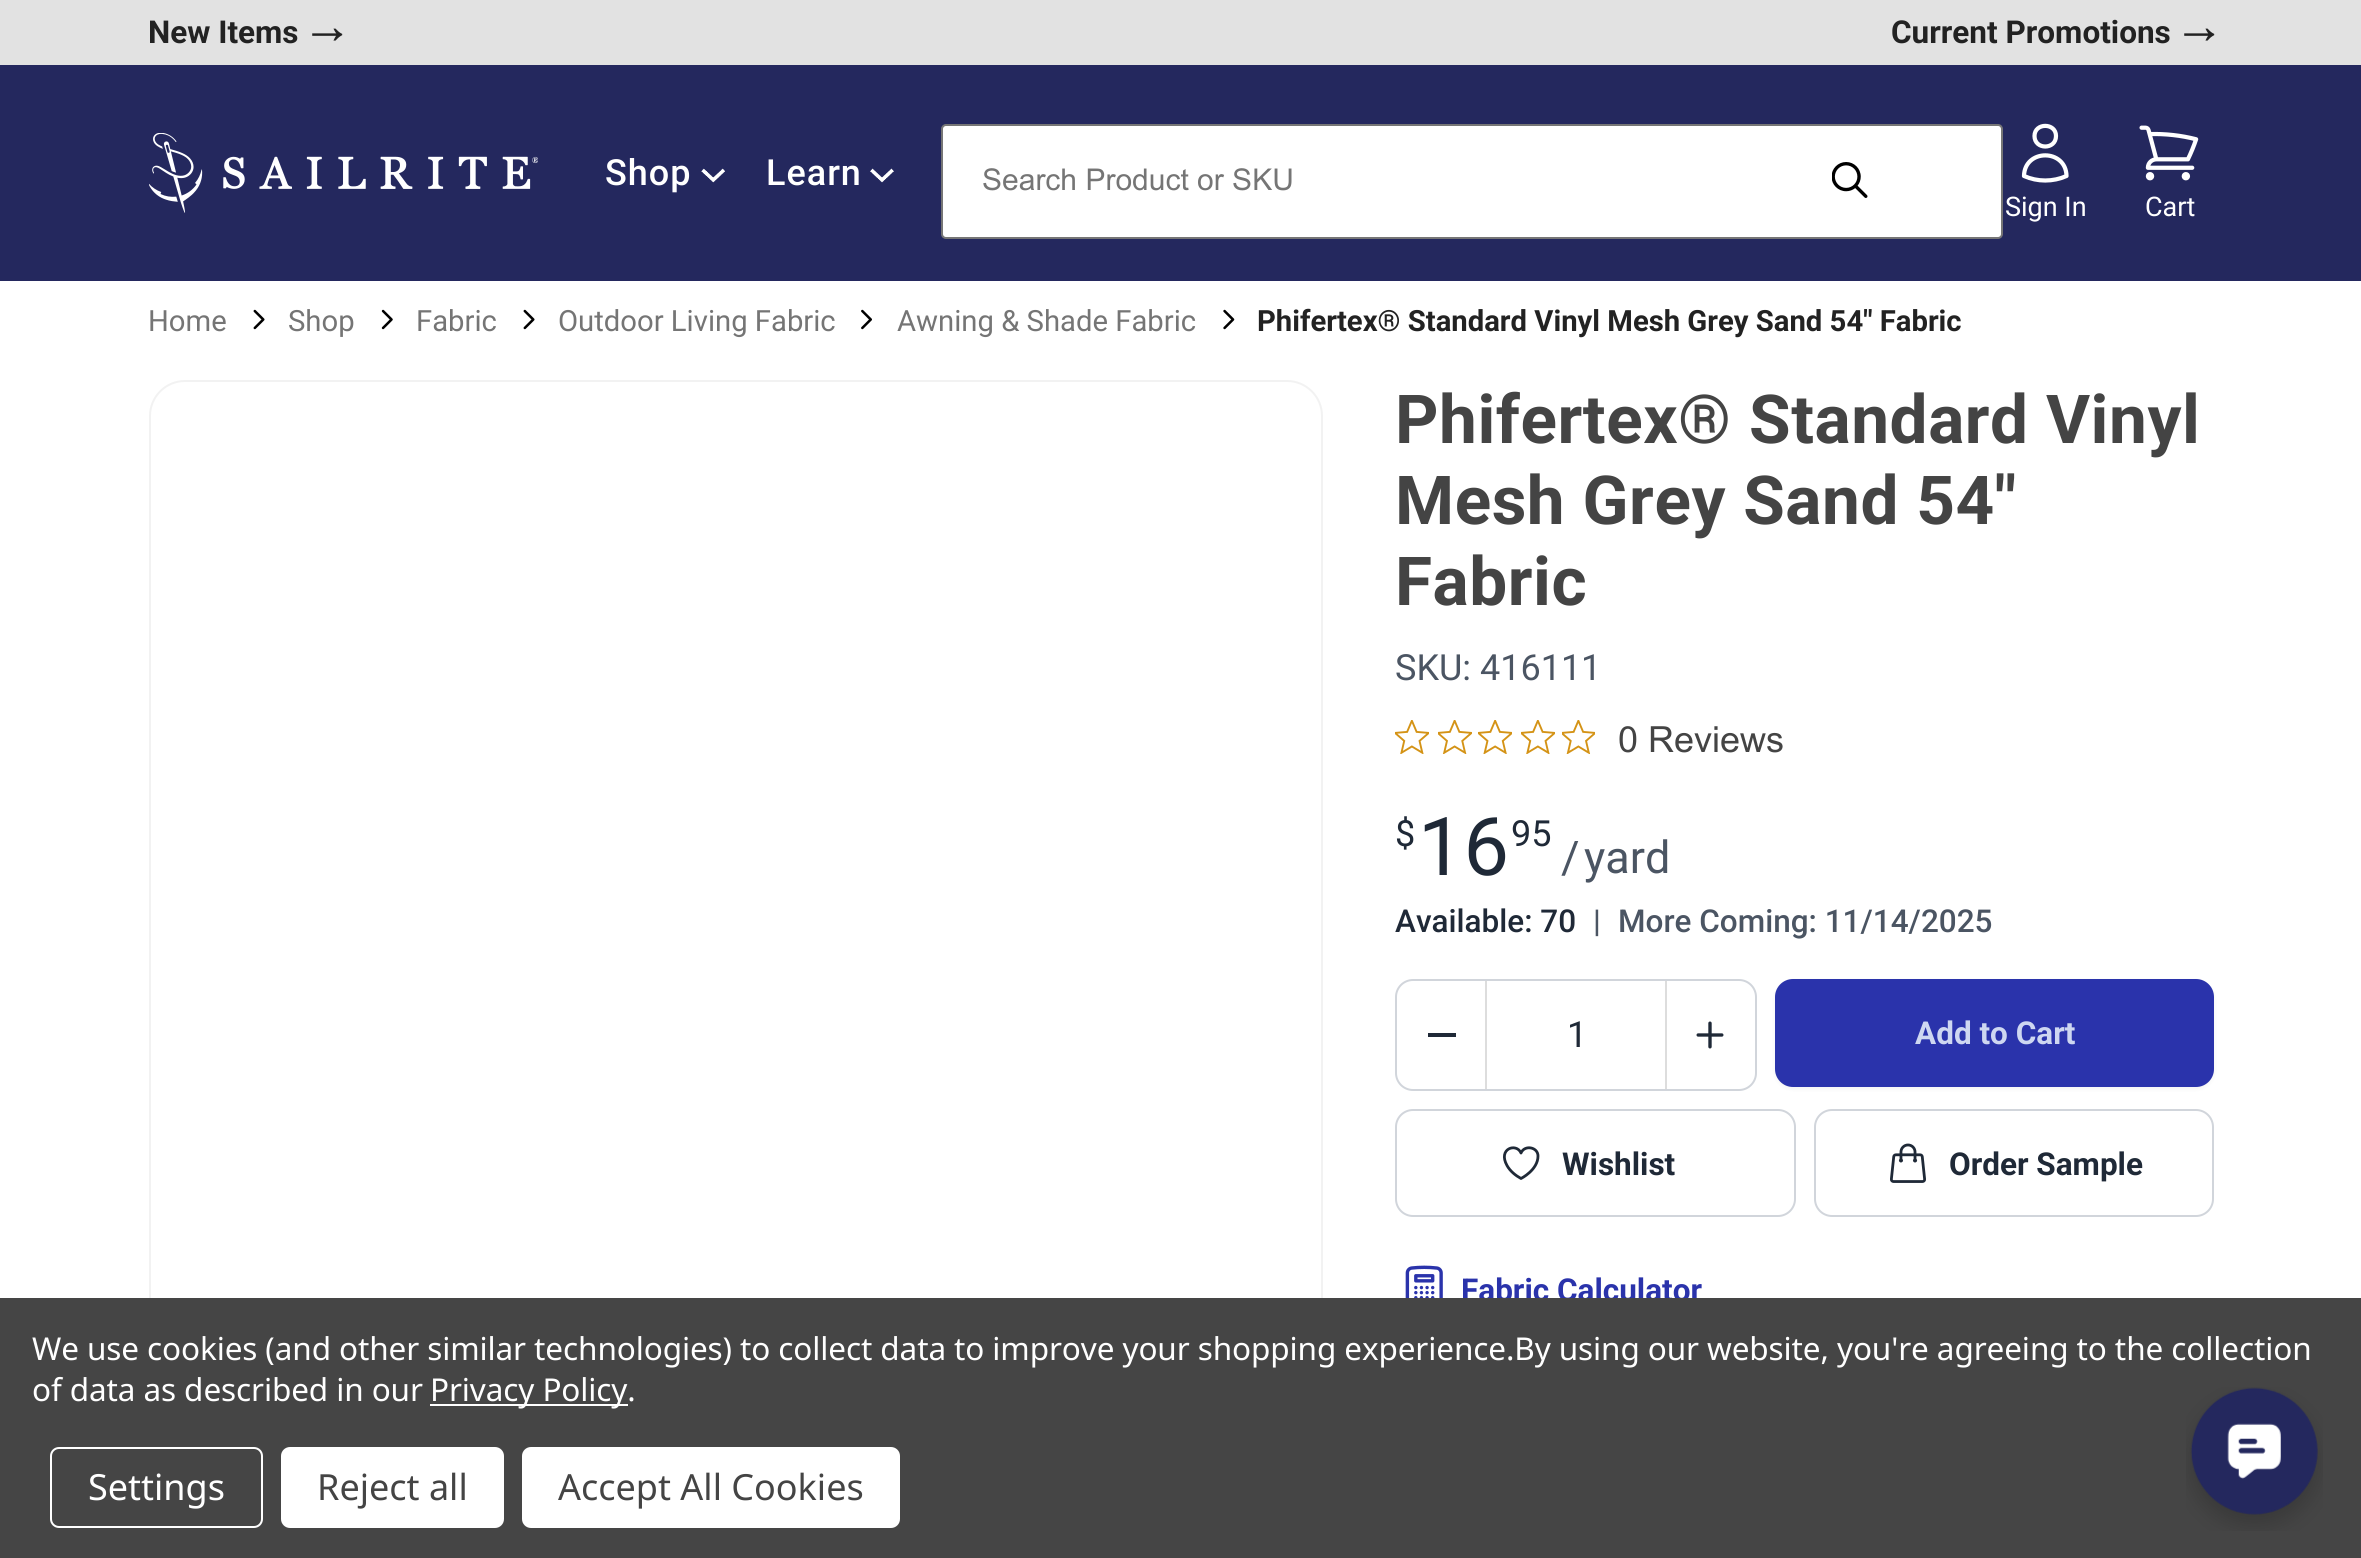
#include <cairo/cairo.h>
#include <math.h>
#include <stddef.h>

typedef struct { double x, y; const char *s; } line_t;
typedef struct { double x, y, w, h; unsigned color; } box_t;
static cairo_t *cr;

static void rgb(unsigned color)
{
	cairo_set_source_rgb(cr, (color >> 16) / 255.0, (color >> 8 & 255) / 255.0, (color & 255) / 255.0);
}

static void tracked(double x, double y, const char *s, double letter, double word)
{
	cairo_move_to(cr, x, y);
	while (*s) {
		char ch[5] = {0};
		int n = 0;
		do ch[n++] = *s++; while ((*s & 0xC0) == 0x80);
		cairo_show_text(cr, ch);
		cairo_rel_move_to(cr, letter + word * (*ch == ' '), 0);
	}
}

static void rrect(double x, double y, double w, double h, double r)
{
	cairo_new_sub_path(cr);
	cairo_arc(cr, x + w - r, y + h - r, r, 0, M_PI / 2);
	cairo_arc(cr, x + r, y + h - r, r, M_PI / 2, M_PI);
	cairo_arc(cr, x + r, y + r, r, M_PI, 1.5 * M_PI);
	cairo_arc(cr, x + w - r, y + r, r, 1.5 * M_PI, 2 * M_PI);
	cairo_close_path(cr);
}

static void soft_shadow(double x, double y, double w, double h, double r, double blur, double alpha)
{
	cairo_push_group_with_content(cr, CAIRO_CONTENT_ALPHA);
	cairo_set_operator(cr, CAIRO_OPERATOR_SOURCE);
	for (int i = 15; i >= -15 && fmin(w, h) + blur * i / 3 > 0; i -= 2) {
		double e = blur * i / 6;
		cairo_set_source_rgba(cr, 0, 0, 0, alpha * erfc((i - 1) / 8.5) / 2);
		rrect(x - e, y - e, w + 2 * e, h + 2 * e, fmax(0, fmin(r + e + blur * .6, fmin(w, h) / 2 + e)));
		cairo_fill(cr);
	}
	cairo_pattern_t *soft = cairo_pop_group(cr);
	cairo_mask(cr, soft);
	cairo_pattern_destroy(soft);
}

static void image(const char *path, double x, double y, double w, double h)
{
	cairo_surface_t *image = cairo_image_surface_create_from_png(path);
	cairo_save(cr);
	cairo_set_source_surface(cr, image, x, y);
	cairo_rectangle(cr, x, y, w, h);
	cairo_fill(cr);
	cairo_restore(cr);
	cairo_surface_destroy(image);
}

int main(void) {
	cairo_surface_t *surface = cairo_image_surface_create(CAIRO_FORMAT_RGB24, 2361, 1558);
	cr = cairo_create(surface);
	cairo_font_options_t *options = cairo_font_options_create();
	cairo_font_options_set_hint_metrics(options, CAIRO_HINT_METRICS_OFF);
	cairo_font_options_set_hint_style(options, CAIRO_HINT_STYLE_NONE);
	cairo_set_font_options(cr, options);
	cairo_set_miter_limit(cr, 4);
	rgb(0xffffff);
	cairo_paint(cr);
	rgb(0xe2e2e2);
	cairo_rectangle(cr, 0, 0, 2361, 65);
	cairo_fill(cr);
	rgb(0x24285e);
	cairo_rectangle(cr, 0, 65, 2361, 216);
	cairo_fill(cr);
	image("img/1.png", 149, 133, 389, 80);
	image("img/2.png", 701, 168, 24, 15);
	image("img/3.png", 870, 168, 24, 15);
	rgb(0xffffff);
	rrect(942, 125, 1060, 113, 4);
	cairo_fill_preserve(cr);
	rgb(0x767676);
	cairo_stroke(cr);
	image("img/4.png", 1832, 162, 36, 36);
	cairo_new_path(cr);
	cairo_move_to(cr, 2056, 136);
	cairo_curve_to(cr, 2056, 150, 2034.5, 150, 2034.5, 136);
	cairo_curve_to(cr, 2034.5, 122.5, 2056, 122.5, 2056, 136);
	cairo_close_path(cr);
	cairo_move_to(cr, 2024, 176);
	cairo_curve_to(cr, 2024.5, 148.5, 2066, 148.5, 2066.5, 176);
	cairo_curve_to(cr, 2053, 182, 2037.5, 182, 2024, 176);
	cairo_close_path(cr);
	rgb(0xffffff);
	cairo_set_line_width(cr, 4.2);
	cairo_set_line_cap(cr, CAIRO_LINE_CAP_ROUND);
	cairo_set_line_join(cr, CAIRO_LINE_JOIN_ROUND);
	cairo_stroke(cr);
	image("img/5.png", 2139, 125, 60, 56);
	image("img/6.png", 253, 309, 12, 21);
	image("img/7.png", 381, 309, 12, 21);
	image("img/6.png", 523, 309, 12, 21);
	image("img/8.png", 861, 309, 11, 21);
	image("img/9.png", 1223, 309, 12, 21);
	rrect(150, 381, 1172, 1175, 35);
	rgb(0xf2f2f2);
	cairo_set_line_width(cr, 2);
	cairo_set_line_cap(cr, CAIRO_LINE_CAP_BUTT);
	cairo_set_line_join(cr, CAIRO_LINE_JOIN_MITER);
	cairo_stroke(cr);
	image("img/10.png", 1395, 720, 34, 34);
	image("img/11.png", 1438, 720, 34, 34);
	image("img/12.png", 1478, 720, 34, 34);
	image("img/10.png", 1521, 720, 34, 34);
	image("img/13.png", 1562, 720, 33, 34);
	rrect(1396, 980, 360, 110, 17);
	rgb(0xd1d5db);
	cairo_stroke(cr);
	{
		static const box_t items[] = {
			{1485, 981, 2, 108, 0xdddddd},
			{1428, 1033, 28, 4, 0x1f2937},
			{1665, 981, 2, 108, 0xdddddd},
		};
		for (size_t i = 0; i < sizeof items / sizeof *items; i++) {
			rgb(items[i].color);
			cairo_rectangle(cr, items[i].x, items[i].y, items[i].w, items[i].h);
			cairo_fill(cr);
		}
	}
	image("img/14.png", 1696, 1021, 28, 28);
	rgb(0x000000);
	soft_shadow(1775, 981, 439, 108, 18, 2, 0.05);
	rgb(0x2a33ab);
	rrect(1775, 979, 439, 108, 18);
	cairo_fill(cr);
	rrect(1396, 1110, 399, 106, 17);
	rgb(0xd1d5db);
	cairo_stroke(cr);
	cairo_new_path(cr);
	cairo_move_to(cr, 1538, 1156);
	cairo_curve_to(cr, 1538, 1147, 1524.5, 1144.5, 1521, 1153);
	cairo_curve_to(cr, 1516.5, 1142.5, 1497.5, 1148.5, 1507, 1165.5);
	cairo_curve_to(cr, 1510, 1171, 1515.5, 1175.5, 1521, 1178.5);
	cairo_curve_to(cr, 1521, 1178.5, 1538, 1170, 1538, 1156);
	cairo_close_path(cr);
	rgb(0x1f2937);
	cairo_set_line_width(cr, 2.8);
	cairo_set_line_cap(cr, CAIRO_LINE_CAP_ROUND);
	cairo_set_line_join(cr, CAIRO_LINE_JOIN_ROUND);
	cairo_stroke(cr);
	rrect(1815, 1110, 398, 106, 17);
	rgb(0xd1d5db);
	cairo_set_line_width(cr, 2);
	cairo_set_line_cap(cr, CAIRO_LINE_CAP_BUTT);
	cairo_set_line_join(cr, CAIRO_LINE_JOIN_MITER);
	cairo_stroke(cr);
	image("img/15.png", 1890, 1143, 36, 40);
	image("img/16.png", 1405, 1265, 38, 33);
	cairo_select_font_face(cr, "Roboto", CAIRO_FONT_SLANT_NORMAL, CAIRO_FONT_WEIGHT_BOLD);
	cairo_set_font_size(cr, 31.5);
	rgb(0x222222);
	cairo_move_to(cr, 148, 43);
	cairo_show_text(cr, "New Items");
	cairo_select_font_face(cr, "Arial", CAIRO_FONT_SLANT_NORMAL, CAIRO_FONT_WEIGHT_BOLD);
	cairo_move_to(cr, 311, 43);
	cairo_show_text(cr, "→");
	cairo_select_font_face(cr, "Roboto", CAIRO_FONT_SLANT_NORMAL, CAIRO_FONT_WEIGHT_BOLD);
	cairo_move_to(cr, 1891, 43);
	cairo_show_text(cr, "Current Promotions");
	cairo_select_font_face(cr, "Arial", CAIRO_FONT_SLANT_NORMAL, CAIRO_FONT_WEIGHT_BOLD);
	cairo_move_to(cr, 2183, 43);
	cairo_show_text(cr, "→");
	cairo_select_font_face(cr, "Roboto Medium", CAIRO_FONT_SLANT_NORMAL, CAIRO_FONT_WEIGHT_NORMAL);
	cairo_set_font_size(cr, 36);
	rgb(0xffffff);
	tracked(605, 185, "Shop", 1, 0);
	tracked(766, 185, "Learn", 1, 0);
	cairo_select_font_face(cr, "Arial", CAIRO_FONT_SLANT_NORMAL, CAIRO_FONT_WEIGHT_NORMAL);
	cairo_set_font_size(cr, 30);
	rgb(0x757575);
	cairo_move_to(cr, 982, 190);
	cairo_show_text(cr, "Search Product or SKU");
	cairo_select_font_face(cr, "Roboto", CAIRO_FONT_SLANT_NORMAL, CAIRO_FONT_WEIGHT_NORMAL);
	cairo_set_font_size(cr, 27);
	rgb(0xffffff);
	cairo_move_to(cr, 2005, 216);
	cairo_show_text(cr, "Sign In");
	cairo_move_to(cr, 2145, 216);
	cairo_show_text(cr, "Cart");
	cairo_set_font_size(cr, 29.25);
	rgb(0x757575);
	{
		static const line_t items[] = {
			{148, 331, "Home"},
			{288, 331, "Shop"},
			{416, 331, "Fabric"},
			{558, 331, "Outdoor Living Fabric"},
			{897, 331, "Awning & Shade Fabric"},
		};
		for (size_t i = 0; i < sizeof items / sizeof *items; i++) {
			cairo_move_to(cr, items[i].x, items[i].y);
			cairo_show_text(cr, items[i].s);
		}
	}
	cairo_select_font_face(cr, "Roboto", CAIRO_FONT_SLANT_NORMAL, CAIRO_FONT_WEIGHT_BOLD);
	rgb(0x222222);
	cairo_move_to(cr, 1257, 331);
	cairo_show_text(cr, "Phifertex® Standard Vinyl Mesh Grey Sand 54\" Fabric");
	cairo_set_font_size(cr, 67.5);
	rgb(0x444444);
	{
		static const line_t items[] = {
			{1395, 443, "Phifertex® Standard Vinyl"},
			{1395, 524, "Mesh Grey Sand 54\""},
			{1395, 605, "Fabric"},
		};
		for (size_t i = 0; i < sizeof items / sizeof *items; i++) {
			tracked(items[i].x, items[i].y, items[i].s, 0.55, 0);
		}
	}
	cairo_select_font_face(cr, "Roboto", CAIRO_FONT_SLANT_NORMAL, CAIRO_FONT_WEIGHT_NORMAL);
	cairo_set_font_size(cr, 36);
	rgb(0x4b5563);
	cairo_move_to(cr, 1395, 680);
	cairo_show_text(cr, "SKU: 416111");
	cairo_select_font_face(cr, "Arial", CAIRO_FONT_SLANT_NORMAL, CAIRO_FONT_WEIGHT_NORMAL);
	rgb(0x444444);
	cairo_move_to(cr, 1618, 752);
	cairo_show_text(cr, "0 Reviews");
	cairo_select_font_face(cr, "Roboto", CAIRO_FONT_SLANT_NORMAL, CAIRO_FONT_WEIGHT_NORMAL);
	rgb(0x1f2937);
	cairo_move_to(cr, 1395, 846);
	cairo_show_text(cr, "$");
	cairo_set_font_size(cr, 81);
	cairo_move_to(cr, 1418, 875);
	cairo_show_text(cr, "16");
	cairo_set_font_size(cr, 36);
	cairo_move_to(cr, 1511, 846);
	cairo_show_text(cr, "95");
	cairo_set_font_size(cr, 45);
	rgb(0x4b5563);
	cairo_move_to(cr, 1561, 873);
	cairo_show_text(cr, "/");
	cairo_move_to(cr, 1584, 873);
	cairo_show_text(cr, "yard");
	cairo_select_font_face(cr, "Roboto Medium", CAIRO_FONT_SLANT_NORMAL, CAIRO_FONT_WEIGHT_NORMAL);
	cairo_set_font_size(cr, 31.5);
	rgb(0x1f2937);
	cairo_move_to(cr, 1395, 932);
	cairo_show_text(cr, "Available: 70");
	rgb(0x4b5563);
	cairo_move_to(cr, 1593, 932);
	cairo_show_text(cr, "|");
	cairo_move_to(cr, 1618, 932);
	cairo_show_text(cr, "More Coming: 11/14/2025");
	cairo_select_font_face(cr, "Roboto", CAIRO_FONT_SLANT_NORMAL, CAIRO_FONT_WEIGHT_NORMAL);
	cairo_set_font_size(cr, 36);
	rgb(0x1f2937);
	cairo_move_to(cr, 1567, 1047);
	cairo_show_text(cr, "1");
	cairo_select_font_face(cr, "Roboto", CAIRO_FONT_SLANT_NORMAL, CAIRO_FONT_WEIGHT_BOLD);
	cairo_set_font_size(cr, 31.5);
	rgb(0xced7f1);
	cairo_move_to(cr, 1915, 1044);
	cairo_show_text(cr, "Add to Cart");
	rgb(0x1f2937);
	cairo_move_to(cr, 1562, 1175);
	cairo_show_text(cr, "Wishlist");
	cairo_move_to(cr, 1949, 1175);
	cairo_show_text(cr, "Order Sample");
	rgb(0x2a33ab);
	cairo_move_to(cr, 1461, 1301);
	cairo_show_text(cr, "Fabric Calculator");
	rgb(0x454545);
	cairo_rectangle(cr, 0, 1298, 2361, 260);
	cairo_fill(cr);
	cairo_select_font_face(cr, "Noto Sans", CAIRO_FONT_SLANT_NORMAL, CAIRO_FONT_WEIGHT_NORMAL);
	rgb(0xffffff);
	tracked(32, 1360, "We use cookies (and other similar technologies) to collect data to improve your shopping experience.By using our website, you're agreeing to the collection", -0.11, 0);
	tracked(32, 1401, "of data as described in our", -0.11, 0);
	cairo_rectangle(cr, 430, 1404, 198, 2);
	cairo_fill(cr);
	tracked(430, 1401, "Privacy Policy.", -0.11, 0);
	rrect(51, 1448, 211, 79, 8);
	cairo_stroke(cr);
	cairo_set_font_size(cr, 36);
	cairo_move_to(cr, 88, 1500);
	cairo_show_text(cr, "Settings");
	rrect(281, 1447, 223, 81, 9);
	cairo_fill(cr);
	rgb(0x444444);
	cairo_move_to(cr, 317, 1500);
	cairo_show_text(cr, "Reject all");
	rgb(0xffffff);
	rrect(522, 1447, 378, 81, 9);
	cairo_fill(cr);
	rgb(0x444444);
	cairo_move_to(cr, 558, 1500);
	cairo_show_text(cr, "Accept All Cookies");
	image("img/17.png", 2186, 1387, 137, 144);
	cairo_surface_write_to_png(surface, "page.png");
	cairo_font_options_destroy(options);
	cairo_destroy(cr);
	cairo_surface_destroy(surface);
	return 0;
}
